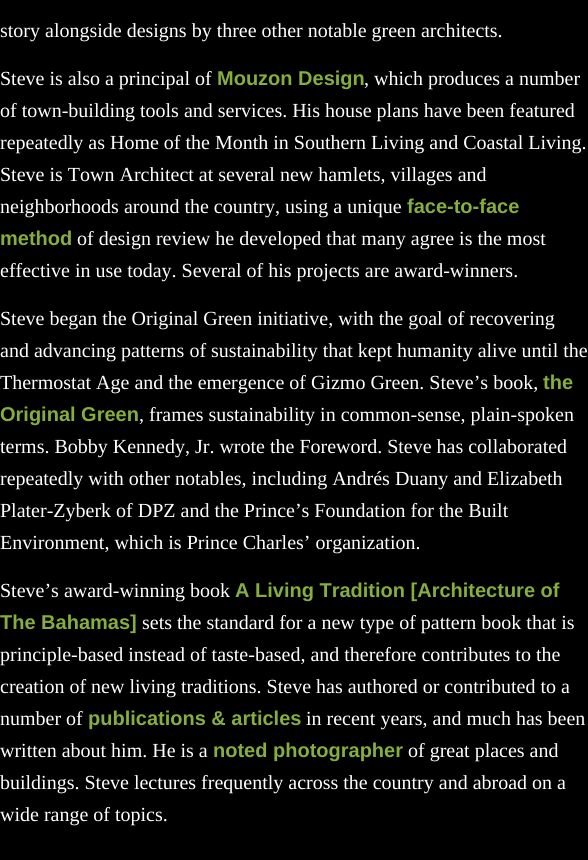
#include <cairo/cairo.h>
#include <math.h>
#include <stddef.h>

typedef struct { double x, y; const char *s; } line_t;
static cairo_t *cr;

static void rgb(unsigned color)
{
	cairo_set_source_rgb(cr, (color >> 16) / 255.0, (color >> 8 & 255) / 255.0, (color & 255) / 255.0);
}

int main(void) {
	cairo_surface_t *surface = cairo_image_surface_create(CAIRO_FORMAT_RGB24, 588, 860);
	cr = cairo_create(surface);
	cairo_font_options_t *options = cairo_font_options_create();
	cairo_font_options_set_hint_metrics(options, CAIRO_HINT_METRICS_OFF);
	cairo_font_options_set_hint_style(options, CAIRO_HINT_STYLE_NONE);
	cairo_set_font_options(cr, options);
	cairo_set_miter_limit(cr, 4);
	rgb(0x000000);
	cairo_paint(cr);
	cairo_select_font_face(cr, "Liberation Serif", CAIRO_FONT_SLANT_NORMAL, CAIRO_FONT_WEIGHT_NORMAL);
	cairo_set_font_size(cr, 20);
	rgb(0xffffff);
	cairo_move_to(cr, 0, 37);
	cairo_show_text(cr, "story alongside designs by three other notable green architects.");
	cairo_move_to(cr, 0, 85);
	cairo_show_text(cr, "Steve is also a principal of");
	cairo_select_font_face(cr, "Liberation Sans", CAIRO_FONT_SLANT_NORMAL, CAIRO_FONT_WEIGHT_BOLD);
	rgb(0x85ae3e);
	cairo_move_to(cr, 217, 85);
	cairo_show_text(cr, "Mouzon Design");
	cairo_select_font_face(cr, "Liberation Serif", CAIRO_FONT_SLANT_NORMAL, CAIRO_FONT_WEIGHT_NORMAL);
	rgb(0xffffff);
	{
		static const line_t items[] = {
			{364, 85, ", which produces a number"},
			{0, 117, "of town-building tools and services. His house plans have been featured"},
			{0, 149, "repeatedly as Home of the Month in Southern Living and Coastal Living."},
			{0, 181, "Steve is Town Architect at several new hamlets, villages and"},
			{0, 213, "neighborhoods around the country, using a unique"},
		};
		for (size_t i = 0; i < sizeof items / sizeof *items; i++) {
			cairo_move_to(cr, items[i].x, items[i].y);
			cairo_show_text(cr, items[i].s);
		}
	}
	cairo_select_font_face(cr, "Liberation Sans", CAIRO_FONT_SLANT_NORMAL, CAIRO_FONT_WEIGHT_BOLD);
	rgb(0x85ae3e);
	cairo_move_to(cr, 407, 213);
	cairo_show_text(cr, "face-to-face");
	cairo_move_to(cr, 0, 245);
	cairo_show_text(cr, "method");
	cairo_select_font_face(cr, "Liberation Serif", CAIRO_FONT_SLANT_NORMAL, CAIRO_FONT_WEIGHT_NORMAL);
	rgb(0xffffff);
	{
		static const line_t items[] = {
			{77, 245, "of design review he developed that many agree is the most"},
			{0, 277, "effective in use today. Several of his projects are award-winners."},
			{0, 325, "Steve began the Original Green initiative, with the goal of recovering"},
			{0, 357, "and advancing patterns of sustainability that kept humanity alive until the"},
			{0, 389, "Thermostat Age and the emergence of Gizmo Green. Steve’s book,"},
		};
		for (size_t i = 0; i < sizeof items / sizeof *items; i++) {
			cairo_move_to(cr, items[i].x, items[i].y);
			cairo_show_text(cr, items[i].s);
		}
	}
	cairo_select_font_face(cr, "Liberation Sans", CAIRO_FONT_SLANT_NORMAL, CAIRO_FONT_WEIGHT_BOLD);
	rgb(0x85ae3e);
	cairo_move_to(cr, 543, 389);
	cairo_show_text(cr, "the");
	cairo_move_to(cr, 0, 421);
	cairo_show_text(cr, "Original Green");
	cairo_select_font_face(cr, "Liberation Serif", CAIRO_FONT_SLANT_NORMAL, CAIRO_FONT_WEIGHT_NORMAL);
	rgb(0xffffff);
	{
		static const line_t items[] = {
			{139, 421, ", frames sustainability in common-sense, plain-spoken"},
			{0, 453, "terms. Bobby Kennedy, Jr. wrote the Foreword. Steve has collaborated"},
			{0, 485, "repeatedly with other notables, including Andrés Duany and Elizabeth"},
			{0, 517, "Plater-Zyberk of DPZ and the Prince’s Foundation for the Built"},
			{0, 549, "Environment, which is Prince Charles’ organization."},
			{0, 597, "Steve’s award-winning book"},
		};
		for (size_t i = 0; i < sizeof items / sizeof *items; i++) {
			cairo_move_to(cr, items[i].x, items[i].y);
			cairo_show_text(cr, items[i].s);
		}
	}
	cairo_select_font_face(cr, "Liberation Sans", CAIRO_FONT_SLANT_NORMAL, CAIRO_FONT_WEIGHT_BOLD);
	rgb(0x85ae3e);
	cairo_move_to(cr, 235, 597);
	cairo_show_text(cr, "A Living Tradition [Architecture of");
	cairo_move_to(cr, 0, 629);
	cairo_show_text(cr, "The Bahamas]");
	cairo_select_font_face(cr, "Liberation Serif", CAIRO_FONT_SLANT_NORMAL, CAIRO_FONT_WEIGHT_NORMAL);
	rgb(0xffffff);
	{
		static const line_t items[] = {
			{142, 629, "sets the standard for a new type of pattern book that is"},
			{0, 661, "principle-based instead of taste-based, and therefore contributes to the"},
			{0, 693, "creation of new living traditions. Steve has authored or contributed to a"},
			{0, 725, "number of"},
		};
		for (size_t i = 0; i < sizeof items / sizeof *items; i++) {
			cairo_move_to(cr, items[i].x, items[i].y);
			cairo_show_text(cr, items[i].s);
		}
	}
	cairo_select_font_face(cr, "Liberation Sans", CAIRO_FONT_SLANT_NORMAL, CAIRO_FONT_WEIGHT_BOLD);
	rgb(0x85ae3e);
	cairo_move_to(cr, 88, 725);
	cairo_show_text(cr, "publications & articles");
	cairo_select_font_face(cr, "Liberation Serif", CAIRO_FONT_SLANT_NORMAL, CAIRO_FONT_WEIGHT_NORMAL);
	rgb(0xffffff);
	cairo_move_to(cr, 306, 725);
	cairo_show_text(cr, "in recent years, and much has been");
	cairo_move_to(cr, 0, 757);
	cairo_show_text(cr, "written about him. He is a");
	cairo_select_font_face(cr, "Liberation Sans", CAIRO_FONT_SLANT_NORMAL, CAIRO_FONT_WEIGHT_BOLD);
	rgb(0x85ae3e);
	cairo_move_to(cr, 213, 757);
	cairo_show_text(cr, "noted photographer");
	cairo_select_font_face(cr, "Liberation Serif", CAIRO_FONT_SLANT_NORMAL, CAIRO_FONT_WEIGHT_NORMAL);
	rgb(0xffffff);
	{
		static const line_t items[] = {
			{408, 757, "of great places and"},
			{0, 789, "buildings. Steve lectures frequently across the country and abroad on a"},
			{0, 821, "wide range of topics."},
		};
		for (size_t i = 0; i < sizeof items / sizeof *items; i++) {
			cairo_move_to(cr, items[i].x, items[i].y);
			cairo_show_text(cr, items[i].s);
		}
	}
	cairo_surface_write_to_png(surface, "page.png");
	cairo_font_options_destroy(options);
	cairo_destroy(cr);
	cairo_surface_destroy(surface);
	return 0;
}
